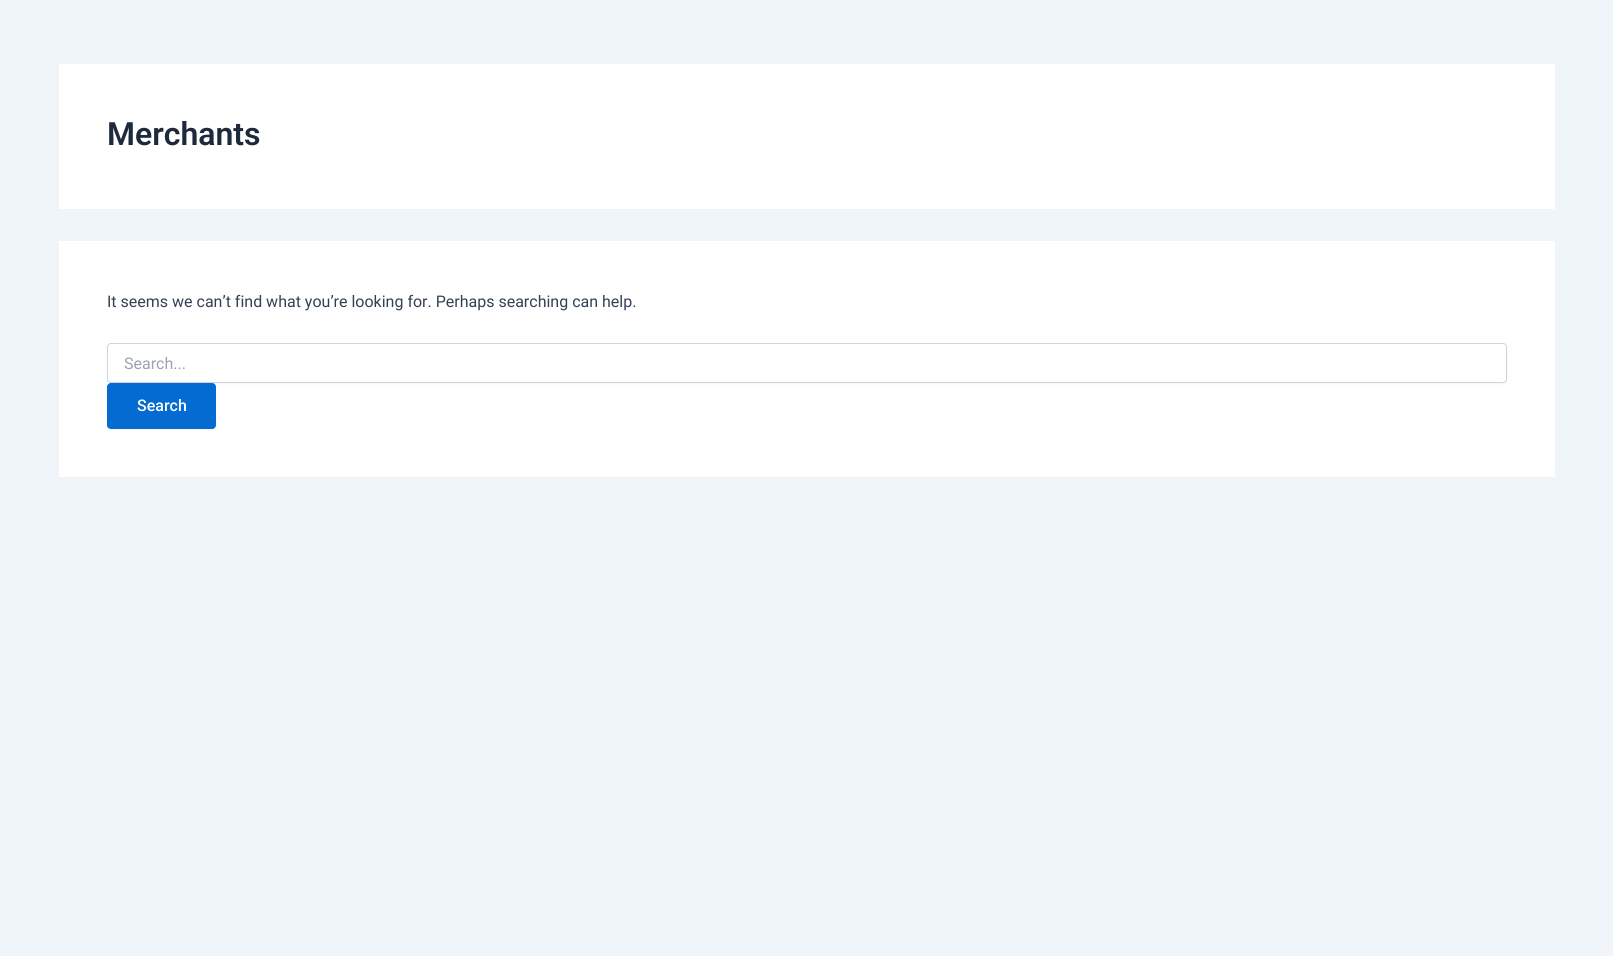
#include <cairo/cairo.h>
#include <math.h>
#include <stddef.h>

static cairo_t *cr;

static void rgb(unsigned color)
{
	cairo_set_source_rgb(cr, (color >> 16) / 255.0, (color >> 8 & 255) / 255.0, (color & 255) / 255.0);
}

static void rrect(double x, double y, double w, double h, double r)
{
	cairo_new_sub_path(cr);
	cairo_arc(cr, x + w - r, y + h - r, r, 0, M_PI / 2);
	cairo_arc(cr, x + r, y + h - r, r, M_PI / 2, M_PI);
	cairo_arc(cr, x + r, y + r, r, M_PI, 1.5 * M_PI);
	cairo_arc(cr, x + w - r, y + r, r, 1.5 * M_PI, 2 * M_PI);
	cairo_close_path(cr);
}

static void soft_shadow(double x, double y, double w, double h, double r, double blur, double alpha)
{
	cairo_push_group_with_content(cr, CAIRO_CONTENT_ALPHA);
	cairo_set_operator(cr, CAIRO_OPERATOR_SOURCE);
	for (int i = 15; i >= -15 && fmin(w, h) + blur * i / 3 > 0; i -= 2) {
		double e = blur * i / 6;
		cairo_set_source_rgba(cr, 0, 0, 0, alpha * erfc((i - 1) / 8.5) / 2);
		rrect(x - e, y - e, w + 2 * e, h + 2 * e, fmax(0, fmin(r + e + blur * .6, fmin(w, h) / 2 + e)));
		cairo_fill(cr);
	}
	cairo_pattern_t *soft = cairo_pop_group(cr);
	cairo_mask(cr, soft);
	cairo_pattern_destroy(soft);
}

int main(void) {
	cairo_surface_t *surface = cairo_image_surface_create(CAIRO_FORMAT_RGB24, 1613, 956);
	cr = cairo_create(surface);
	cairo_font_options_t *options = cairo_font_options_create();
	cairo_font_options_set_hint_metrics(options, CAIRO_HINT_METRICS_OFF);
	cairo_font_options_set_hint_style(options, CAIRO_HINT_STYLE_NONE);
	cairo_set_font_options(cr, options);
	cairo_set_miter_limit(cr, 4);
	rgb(0xf0f5fa);
	cairo_paint(cr);
	rgb(0xffffff);
	cairo_rectangle(cr, 59, 64, 1496, 145);
	cairo_fill(cr);
	cairo_rectangle(cr, 59, 241, 1496, 236);
	cairo_fill(cr);
	rgb(0x000000);
	soft_shadow(107, 344, 1400, 40, 4, 1, 0.05);
	rgb(0xffffff);
	rrect(107.5, 343.5, 1399, 39, 3.5);
	cairo_fill_preserve(cr);
	rgb(0xd1d5db);
	cairo_set_line_width(cr, 1);
	cairo_stroke(cr);
	rgb(0x000000);
	soft_shadow(107, 384, 109, 46, 4, 1, 0.05);
	rgb(0x046bd2);
	rrect(107, 383, 109, 46, 4);
	cairo_fill(cr);
	cairo_select_font_face(cr, "Roboto SemiBold", CAIRO_FONT_SLANT_NORMAL, CAIRO_FONT_WEIGHT_NORMAL);
	cairo_set_font_size(cr, 32);
	rgb(0x1e293b);
	cairo_move_to(cr, 107, 145);
	cairo_show_text(cr, "Merchants");
	cairo_select_font_face(cr, "Roboto", CAIRO_FONT_SLANT_NORMAL, CAIRO_FONT_WEIGHT_NORMAL);
	cairo_set_font_size(cr, 16);
	rgb(0x334155);
	cairo_move_to(cr, 107, 307);
	cairo_show_text(cr, "It seems we can’t find what you’re looking for. Perhaps searching can help.");
	rgb(0x9ca3af);
	cairo_move_to(cr, 124, 369);
	cairo_show_text(cr, "Search...");
	cairo_select_font_face(cr, "Roboto Medium", CAIRO_FONT_SLANT_NORMAL, CAIRO_FONT_WEIGHT_NORMAL);
	rgb(0xffffff);
	cairo_move_to(cr, 137, 411);
	cairo_show_text(cr, "Search");
	cairo_surface_write_to_png(surface, "page.png");
	cairo_font_options_destroy(options);
	cairo_destroy(cr);
	cairo_surface_destroy(surface);
	return 0;
}
